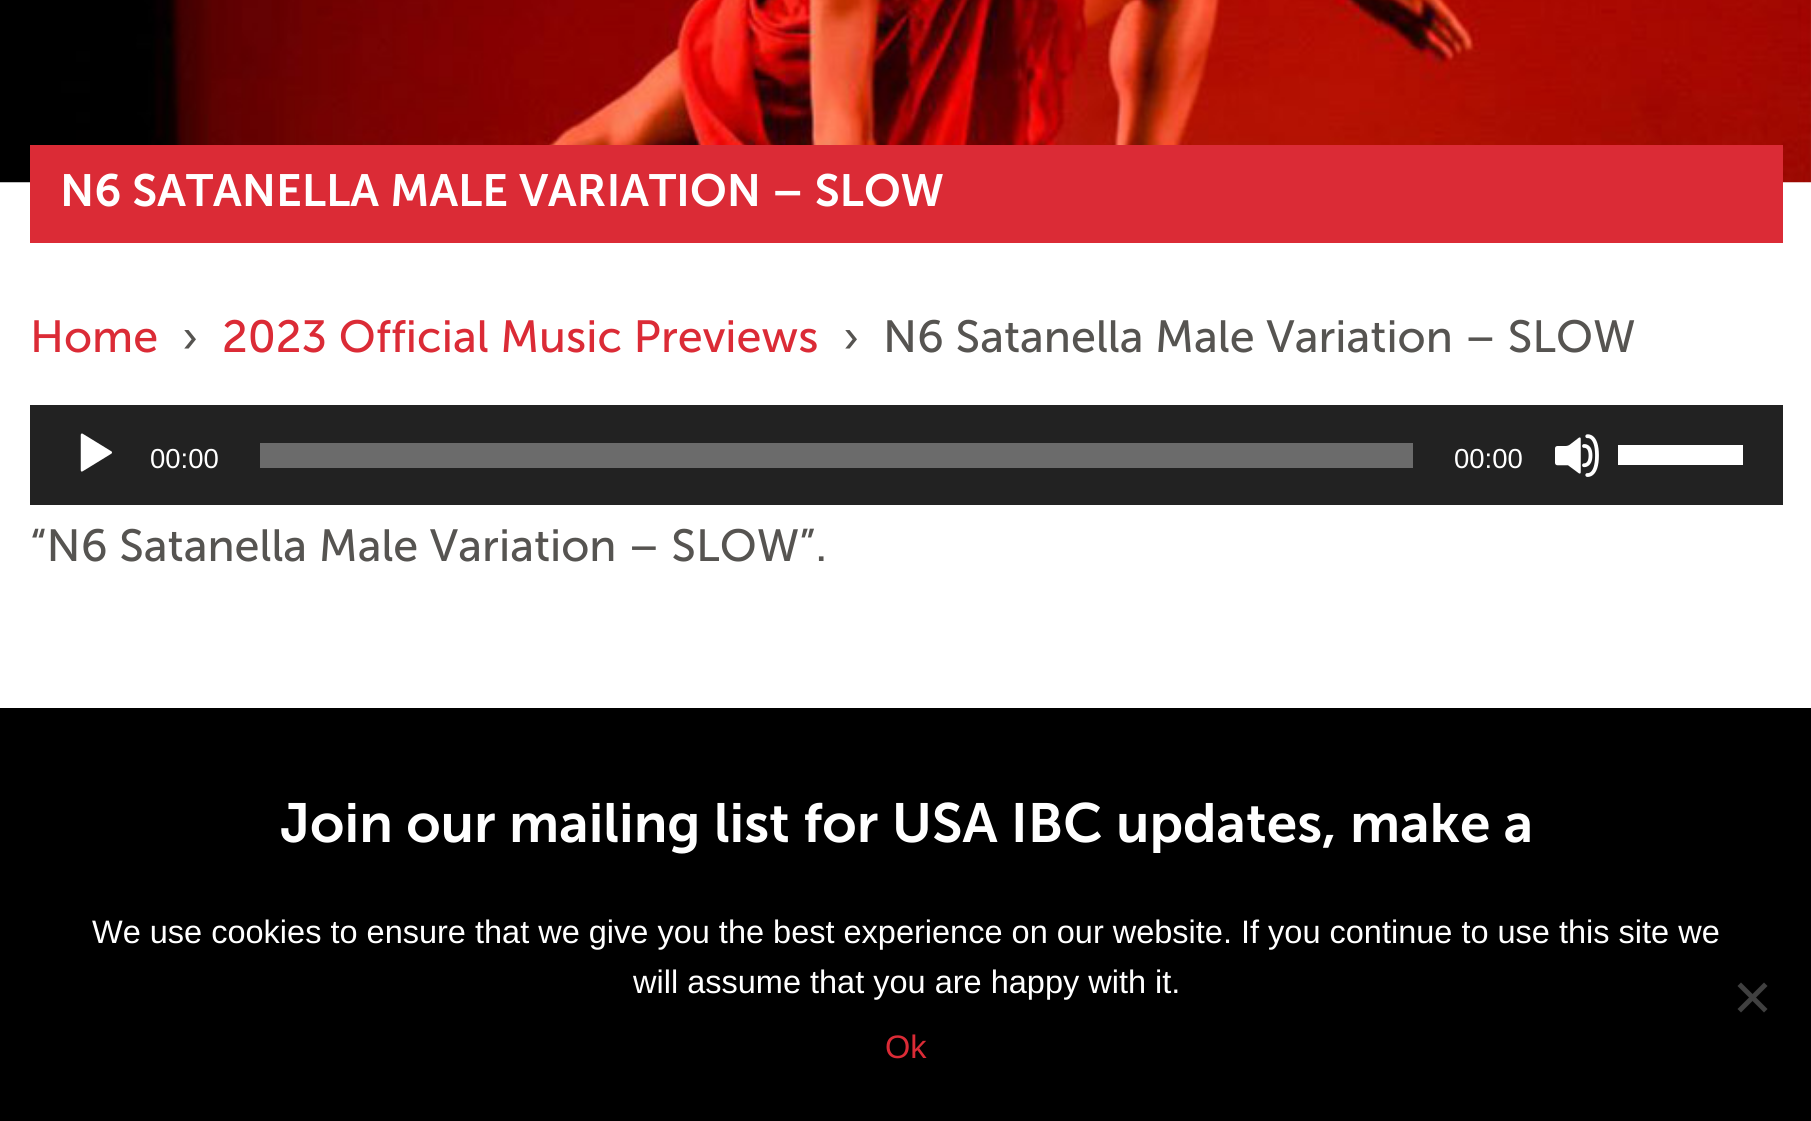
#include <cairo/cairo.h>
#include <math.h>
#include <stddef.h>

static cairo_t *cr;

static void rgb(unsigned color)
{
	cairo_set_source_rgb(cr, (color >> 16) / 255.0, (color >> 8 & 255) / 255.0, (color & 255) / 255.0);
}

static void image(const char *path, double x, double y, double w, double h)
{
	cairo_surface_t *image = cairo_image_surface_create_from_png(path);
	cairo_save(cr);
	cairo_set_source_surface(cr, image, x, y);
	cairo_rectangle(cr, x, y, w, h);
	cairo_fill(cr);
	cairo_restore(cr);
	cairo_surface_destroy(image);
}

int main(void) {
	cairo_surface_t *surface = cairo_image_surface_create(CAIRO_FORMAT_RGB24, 1811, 1121);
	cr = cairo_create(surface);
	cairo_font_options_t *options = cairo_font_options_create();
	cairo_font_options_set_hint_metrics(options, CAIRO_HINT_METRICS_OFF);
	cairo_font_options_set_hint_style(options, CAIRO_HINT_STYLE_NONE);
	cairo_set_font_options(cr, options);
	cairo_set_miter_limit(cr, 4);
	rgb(0xffffff);
	cairo_paint(cr);
	image("img/1.png", 0, 0, 1811, 183);
	rgb(0xdb2b36);
	cairo_rectangle(cr, 30, 145, 1753, 98);
	cairo_fill(cr);
	rgb(0x222222);
	cairo_rectangle(cr, 30, 405, 1753, 100);
	cairo_fill(cr);
	image("img/2.png", 80, 433, 32, 39);
	rgb(0x6b6b6b);
	cairo_rectangle(cr, 260, 443, 1153, 25);
	cairo_fill(cr);
	image("img/3.png", 1555, 434, 44, 43);
	rgb(0xffffff);
	cairo_rectangle(cr, 1618, 445, 125, 20);
	cairo_fill(cr);
	rgb(0x000000);
	cairo_rectangle(cr, 0, 708, 1811, 413);
	cairo_fill(cr);
	rgb(0x404040);
	cairo_new_path(cr);
	cairo_move_to(cr, 1764, 982.5);
	cairo_line_to(cr, 1767.5, 986);
	cairo_line_to(cr, 1741, 1012.5);
	cairo_line_to(cr, 1737.5, 1009);
	cairo_close_path(cr);
	cairo_fill(cr);
	cairo_new_path(cr);
	cairo_move_to(cr, 1737.5, 986);
	cairo_line_to(cr, 1741, 982.5);
	cairo_line_to(cr, 1767.5, 1009);
	cairo_line_to(cr, 1764, 1012.5);
	cairo_close_path(cr);
	cairo_fill(cr);
	cairo_select_font_face(cr, "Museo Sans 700 SemiBold", CAIRO_FONT_SLANT_NORMAL, CAIRO_FONT_WEIGHT_NORMAL);
	cairo_set_font_size(cr, 45);
	rgb(0xffffff);
	cairo_move_to(cr, 60, 206);
	cairo_show_text(cr, "N6 SATANELLA MALE VARIATION – SLOW");
	cairo_select_font_face(cr, "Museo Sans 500", CAIRO_FONT_SLANT_NORMAL, CAIRO_FONT_WEIGHT_NORMAL);
	rgb(0xdb2b36);
	cairo_move_to(cr, 30, 352);
	cairo_show_text(cr, "Home");
	rgb(0x565451);
	cairo_move_to(cr, 182, 352);
	cairo_show_text(cr, "›");
	rgb(0xdb2b36);
	cairo_move_to(cr, 222, 352);
	cairo_show_text(cr, "2023 Official Music Previews");
	rgb(0x565451);
	cairo_move_to(cr, 843, 352);
	cairo_show_text(cr, "›");
	cairo_move_to(cr, 883, 352);
	cairo_show_text(cr, "N6 Satanella Male Variation – SLOW");
	cairo_select_font_face(cr, "Liberation Sans", CAIRO_FONT_SLANT_NORMAL, CAIRO_FONT_WEIGHT_NORMAL);
	cairo_set_font_size(cr, 27.5);
	rgb(0xffffff);
	cairo_move_to(cr, 150, 468);
	cairo_show_text(cr, "00:00");
	cairo_move_to(cr, 1454, 468);
	cairo_show_text(cr, "00:00");
	cairo_select_font_face(cr, "Museo Sans 500", CAIRO_FONT_SLANT_NORMAL, CAIRO_FONT_WEIGHT_NORMAL);
	cairo_set_font_size(cr, 45);
	rgb(0x565451);
	cairo_move_to(cr, 30, 561);
	cairo_show_text(cr, "“N6 Satanella Male Variation – SLOW”.");
	cairo_select_font_face(cr, "Museo Sans 700 SemiBold", CAIRO_FONT_SLANT_NORMAL, CAIRO_FONT_WEIGHT_NORMAL);
	cairo_set_font_size(cr, 55);
	rgb(0xffffff);
	cairo_move_to(cr, 280, 842);
	cairo_show_text(cr, "Join our mailing list for USA IBC updates, make a");
	cairo_select_font_face(cr, "Liberation Sans", CAIRO_FONT_SLANT_NORMAL, CAIRO_FONT_WEIGHT_NORMAL);
	cairo_set_font_size(cr, 32.5);
	cairo_move_to(cr, 92, 943);
	cairo_show_text(cr, "We use cookies to ensure that we give you the best experience on our website. If you continue to use this site we");
	cairo_move_to(cr, 633, 993);
	cairo_show_text(cr, "will assume that you are happy with it.");
	rgb(0xdb2b36);
	cairo_move_to(cr, 885, 1058);
	cairo_show_text(cr, "Ok");
	cairo_surface_write_to_png(surface, "page.png");
	cairo_font_options_destroy(options);
	cairo_destroy(cr);
	cairo_surface_destroy(surface);
	return 0;
}
